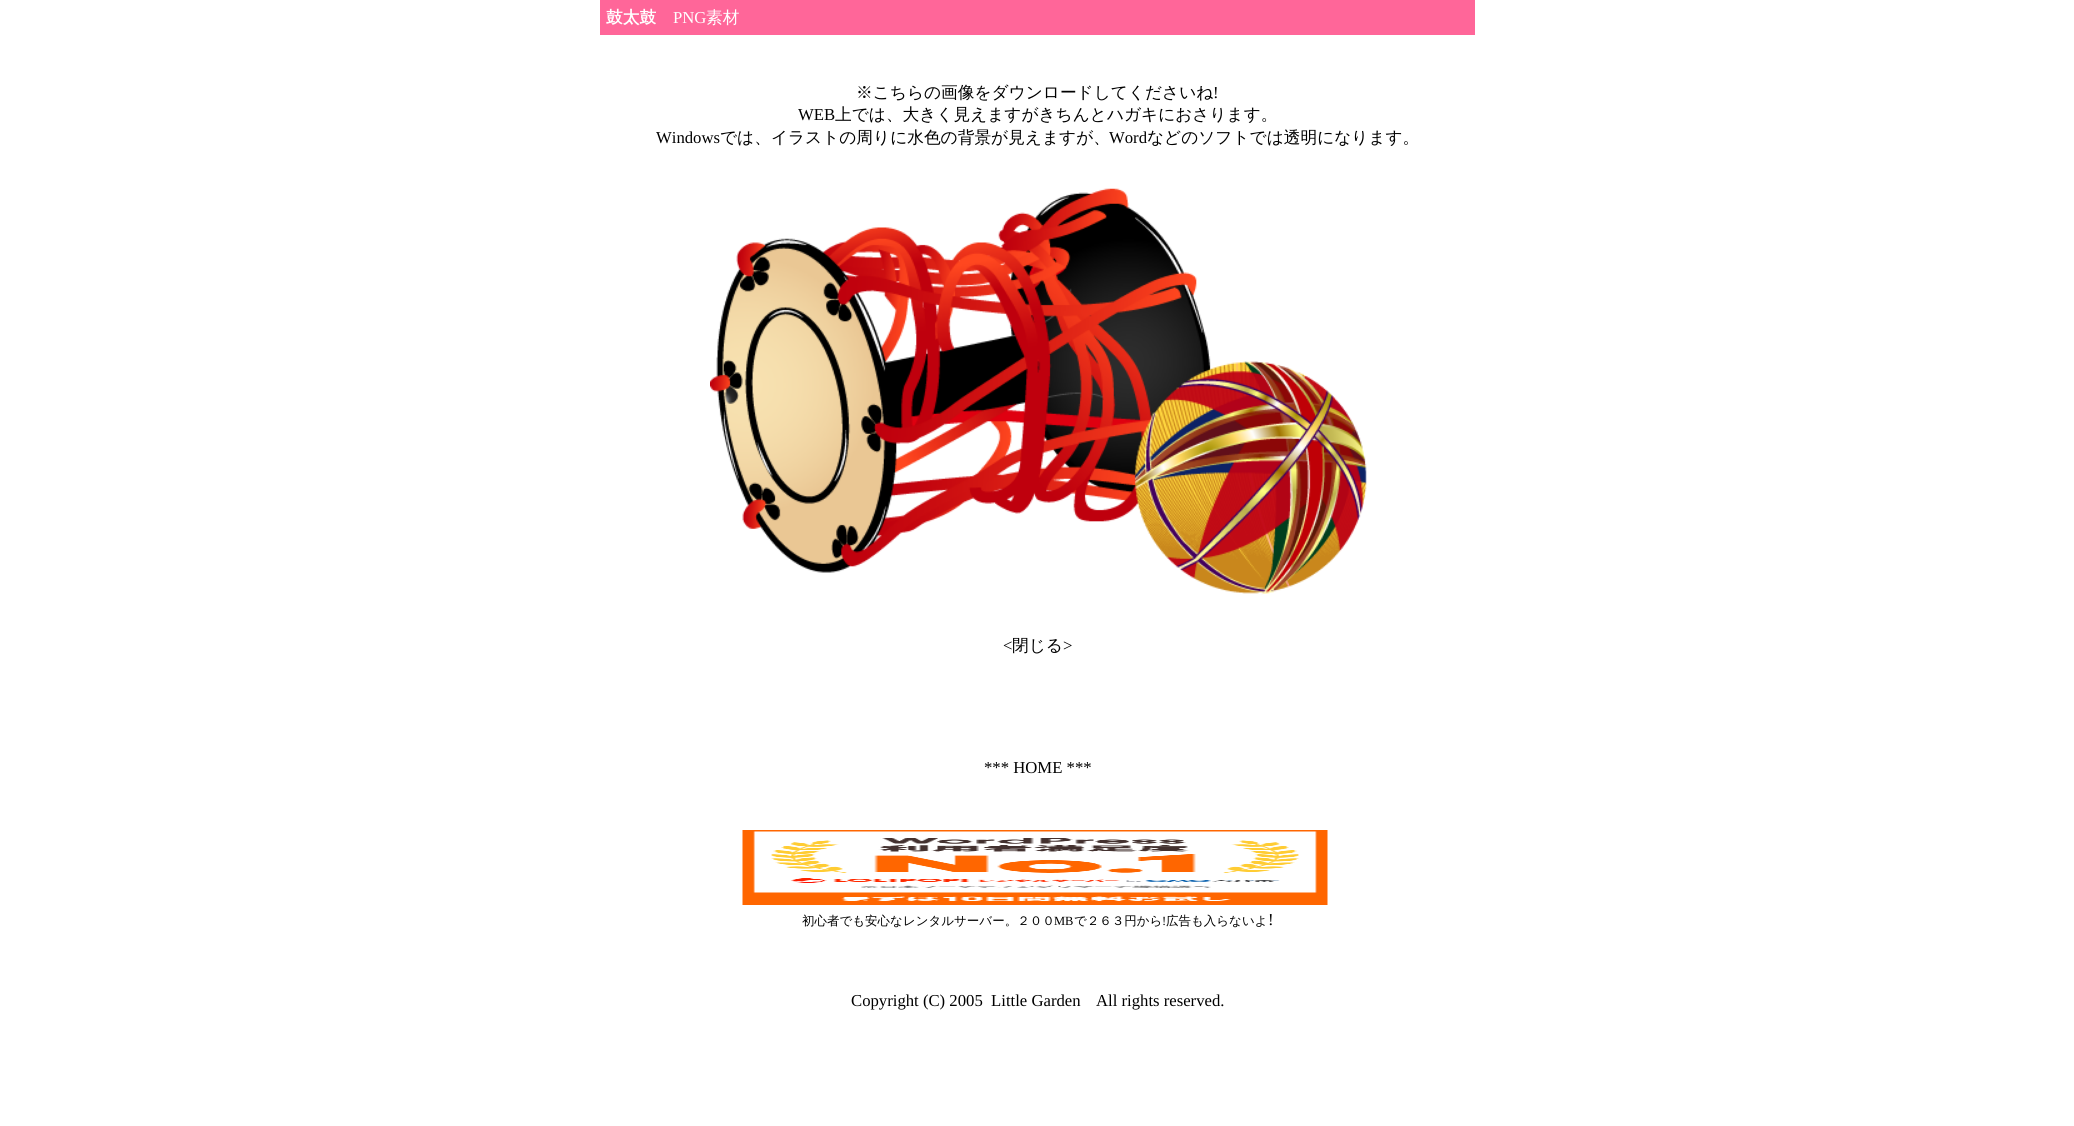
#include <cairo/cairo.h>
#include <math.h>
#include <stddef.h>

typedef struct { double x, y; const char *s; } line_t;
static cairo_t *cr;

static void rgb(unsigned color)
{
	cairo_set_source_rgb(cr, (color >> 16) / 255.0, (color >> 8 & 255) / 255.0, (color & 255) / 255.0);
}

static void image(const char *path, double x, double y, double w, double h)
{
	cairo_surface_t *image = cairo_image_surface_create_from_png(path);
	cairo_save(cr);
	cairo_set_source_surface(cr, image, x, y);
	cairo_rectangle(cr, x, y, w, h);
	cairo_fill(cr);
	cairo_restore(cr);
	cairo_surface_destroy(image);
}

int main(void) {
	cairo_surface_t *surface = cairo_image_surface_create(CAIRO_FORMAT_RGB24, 2074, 1126);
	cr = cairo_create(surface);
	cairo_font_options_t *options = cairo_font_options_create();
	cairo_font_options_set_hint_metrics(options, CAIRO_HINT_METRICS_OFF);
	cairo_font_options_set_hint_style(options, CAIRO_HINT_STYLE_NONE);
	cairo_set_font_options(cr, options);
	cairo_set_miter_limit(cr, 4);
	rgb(0xffffff);
	cairo_paint(cr);
	rgb(0xff6699);
	cairo_rectangle(cr, 600, 0, 875, 35);
	cairo_fill(cr);
	image("img/1.png", 710, 188, 657, 407);
	image("img/2.png", 742, 830, 586, 75);
	cairo_select_font_face(cr, "WenQuanYi Zen Hei", CAIRO_FONT_SLANT_NORMAL, CAIRO_FONT_WEIGHT_BOLD);
	cairo_set_font_size(cr, 16.7);
	rgb(0xffffff);
	cairo_move_to(cr, 606, 23);
	cairo_show_text(cr, "鼓太鼓");
	cairo_select_font_face(cr, "Liberation Serif", CAIRO_FONT_SLANT_NORMAL, CAIRO_FONT_WEIGHT_NORMAL);
	cairo_move_to(cr, 673, 23);
	cairo_show_text(cr, "PNG");
	cairo_select_font_face(cr, "WenQuanYi Zen Hei Medium", CAIRO_FONT_SLANT_NORMAL, CAIRO_FONT_WEIGHT_NORMAL);
	cairo_move_to(cr, 706, 23);
	cairo_show_text(cr, "素材");
	rgb(0x000000);
	cairo_move_to(cr, 856, 98);
	cairo_show_text(cr, "※こちらの画像をダウンロードしてくださいね");
	cairo_select_font_face(cr, "Liberation Serif", CAIRO_FONT_SLANT_NORMAL, CAIRO_FONT_WEIGHT_NORMAL);
	cairo_move_to(cr, 1213, 98);
	cairo_show_text(cr, "!");
	cairo_move_to(cr, 798, 120);
	cairo_show_text(cr, "WEB");
	cairo_select_font_face(cr, "WenQuanYi Zen Hei Medium", CAIRO_FONT_SLANT_NORMAL, CAIRO_FONT_WEIGHT_NORMAL);
	cairo_move_to(cr, 835, 120);
	cairo_show_text(cr, "上では、大きく見えますがきちんとハガキにおさります。");
	cairo_select_font_face(cr, "Liberation Serif", CAIRO_FONT_SLANT_NORMAL, CAIRO_FONT_WEIGHT_NORMAL);
	cairo_move_to(cr, 656, 143);
	cairo_show_text(cr, "Windows");
	cairo_select_font_face(cr, "WenQuanYi Zen Hei Medium", CAIRO_FONT_SLANT_NORMAL, CAIRO_FONT_WEIGHT_NORMAL);
	cairo_move_to(cr, 720, 143);
	cairo_show_text(cr, "では、イラストの周りに水色の背景が見えますが、");
	cairo_select_font_face(cr, "Liberation Serif", CAIRO_FONT_SLANT_NORMAL, CAIRO_FONT_WEIGHT_NORMAL);
	cairo_move_to(cr, 1109, 143);
	cairo_show_text(cr, "Word");
	cairo_select_font_face(cr, "WenQuanYi Zen Hei Medium", CAIRO_FONT_SLANT_NORMAL, CAIRO_FONT_WEIGHT_NORMAL);
	cairo_move_to(cr, 1147, 143);
	cairo_show_text(cr, "などのソフトでは透明になります。");
	cairo_select_font_face(cr, "Liberation Serif", CAIRO_FONT_SLANT_NORMAL, CAIRO_FONT_WEIGHT_NORMAL);
	cairo_move_to(cr, 1003, 651);
	cairo_show_text(cr, "<");
	cairo_select_font_face(cr, "WenQuanYi Zen Hei Medium", CAIRO_FONT_SLANT_NORMAL, CAIRO_FONT_WEIGHT_NORMAL);
	cairo_move_to(cr, 1012, 651);
	cairo_show_text(cr, "閉じる");
	cairo_select_font_face(cr, "Liberation Serif", CAIRO_FONT_SLANT_NORMAL, CAIRO_FONT_WEIGHT_NORMAL);
	cairo_move_to(cr, 1063, 651);
	cairo_show_text(cr, ">");
	cairo_move_to(cr, 984, 773);
	cairo_show_text(cr, "*** HOME ***");
	cairo_select_font_face(cr, "WenQuanYi Zen Hei Medium", CAIRO_FONT_SLANT_NORMAL, CAIRO_FONT_WEIGHT_NORMAL);
	cairo_set_font_size(cr, 12.5);
	cairo_move_to(cr, 802, 925);
	cairo_show_text(cr, "初心者でも安心なレンタルサーバー。２００");
	cairo_select_font_face(cr, "Liberation Serif", CAIRO_FONT_SLANT_NORMAL, CAIRO_FONT_WEIGHT_NORMAL);
	cairo_move_to(cr, 1054, 925);
	cairo_show_text(cr, "MB");
	cairo_select_font_face(cr, "WenQuanYi Zen Hei Medium", CAIRO_FONT_SLANT_NORMAL, CAIRO_FONT_WEIGHT_NORMAL);
	cairo_move_to(cr, 1074, 925);
	cairo_show_text(cr, "で２６３円から");
	cairo_select_font_face(cr, "Liberation Serif", CAIRO_FONT_SLANT_NORMAL, CAIRO_FONT_WEIGHT_NORMAL);
	cairo_move_to(cr, 1162, 925);
	cairo_show_text(cr, "!");
	cairo_select_font_face(cr, "WenQuanYi Zen Hei Medium", CAIRO_FONT_SLANT_NORMAL, CAIRO_FONT_WEIGHT_NORMAL);
	cairo_move_to(cr, 1166, 925);
	cairo_show_text(cr, "広告も入らないよ");
	cairo_select_font_face(cr, "Liberation Serif", CAIRO_FONT_SLANT_NORMAL, CAIRO_FONT_WEIGHT_NORMAL);
	cairo_set_font_size(cr, 16.7);
	{
		static const line_t items[] = {
			{1268, 925, "!"},
			{851, 1006, "Copyright (C) 2005  Little Garden"},
			{1096, 1006, "All rights reserved."},
		};
		for (size_t i = 0; i < sizeof items / sizeof *items; i++) {
			cairo_move_to(cr, items[i].x, items[i].y);
			cairo_show_text(cr, items[i].s);
		}
	}
	cairo_surface_write_to_png(surface, "page.png");
	cairo_font_options_destroy(options);
	cairo_destroy(cr);
	cairo_surface_destroy(surface);
	return 0;
}
